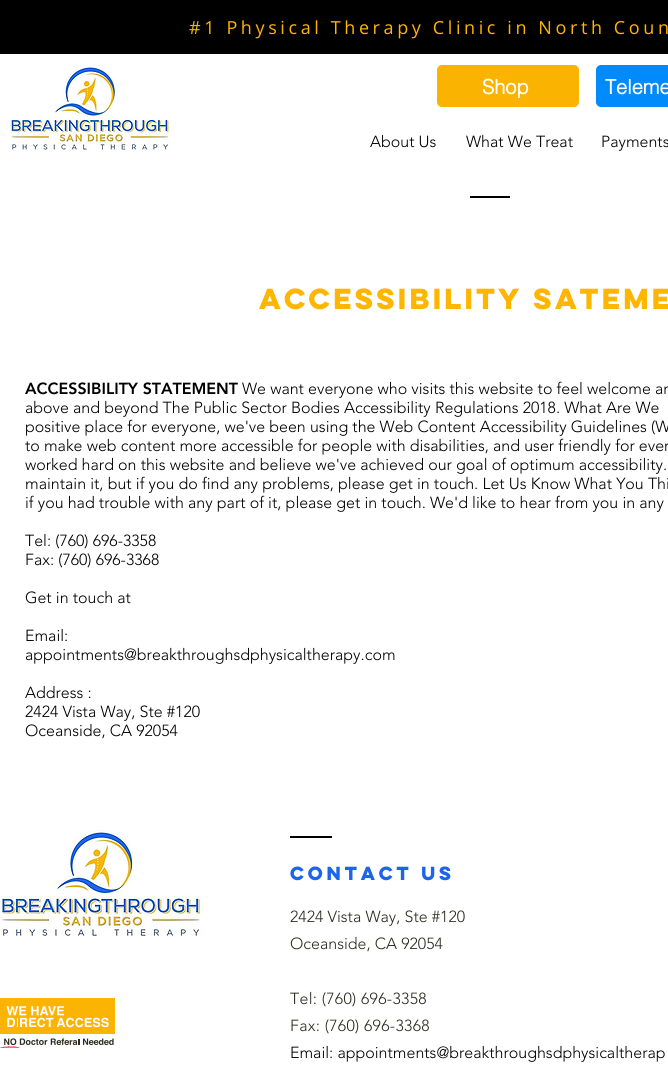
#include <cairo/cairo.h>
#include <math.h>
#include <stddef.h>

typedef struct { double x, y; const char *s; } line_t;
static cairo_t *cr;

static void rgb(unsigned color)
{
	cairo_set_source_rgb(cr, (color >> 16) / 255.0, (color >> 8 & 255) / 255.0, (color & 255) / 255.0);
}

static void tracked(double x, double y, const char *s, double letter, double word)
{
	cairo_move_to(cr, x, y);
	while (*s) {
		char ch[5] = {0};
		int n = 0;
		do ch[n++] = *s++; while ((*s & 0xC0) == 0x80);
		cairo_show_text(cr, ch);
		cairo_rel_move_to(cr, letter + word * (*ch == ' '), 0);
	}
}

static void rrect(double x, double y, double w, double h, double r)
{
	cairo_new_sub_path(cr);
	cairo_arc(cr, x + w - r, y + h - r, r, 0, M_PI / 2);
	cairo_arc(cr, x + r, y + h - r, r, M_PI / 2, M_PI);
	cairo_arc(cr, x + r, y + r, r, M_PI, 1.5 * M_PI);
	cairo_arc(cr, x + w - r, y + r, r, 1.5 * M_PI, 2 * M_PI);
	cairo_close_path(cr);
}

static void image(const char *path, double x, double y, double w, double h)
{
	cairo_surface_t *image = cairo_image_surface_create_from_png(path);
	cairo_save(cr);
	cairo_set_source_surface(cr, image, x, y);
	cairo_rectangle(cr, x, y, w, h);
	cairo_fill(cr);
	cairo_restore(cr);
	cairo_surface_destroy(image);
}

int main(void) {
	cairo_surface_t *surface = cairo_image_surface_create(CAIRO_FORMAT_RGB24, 668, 1077);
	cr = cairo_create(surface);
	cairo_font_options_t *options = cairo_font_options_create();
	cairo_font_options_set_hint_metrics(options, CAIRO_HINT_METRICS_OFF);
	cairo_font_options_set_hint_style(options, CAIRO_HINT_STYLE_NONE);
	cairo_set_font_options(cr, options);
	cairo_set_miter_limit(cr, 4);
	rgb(0xffffff);
	cairo_paint(cr);
	rgb(0x000000);
	cairo_rectangle(cr, 0, 0, 668, 54);
	cairo_fill(cr);
	image("img/1.png", 10, 65, 160, 86);
	rgb(0xfab400);
	rrect(437, 65, 142, 42, 5);
	cairo_fill(cr);
	rgb(0x008afc);
	rrect(596, 65, 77, 42, 5);
	cairo_fill(cr);
	rgb(0x000000);
	cairo_rectangle(cr, 470, 196, 40, 2);
	cairo_fill(cr);
	image("img/2.png", 0, 830, 201, 107);
	cairo_rectangle(cr, 290, 836, 42, 2);
	cairo_fill(cr);
	image("img/3.png", 0, 998, 115, 50);
	cairo_select_font_face(cr, "Open Sans", CAIRO_FONT_SLANT_NORMAL, CAIRO_FONT_WEIGHT_NORMAL);
	cairo_set_font_size(cr, 18);
	rgb(0xfeb601);
	tracked(189, 34, "#1 Physical Therapy Clinic in North Coun", 3.6, 0);
	cairo_select_font_face(cr, "helvetica", CAIRO_FONT_SLANT_NORMAL, CAIRO_FONT_WEIGHT_BOLD);
	cairo_set_font_size(cr, 20);
	rgb(0xffffff);
	cairo_move_to(cr, 482, 94);
	cairo_show_text(cr, "Shop");
	cairo_move_to(cr, 605, 94);
	cairo_show_text(cr, "Teleme");
	cairo_select_font_face(cr, "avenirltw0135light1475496 Light", CAIRO_FONT_SLANT_NORMAL, CAIRO_FONT_WEIGHT_NORMAL);
	cairo_set_font_size(cr, 16);
	rgb(0x000000);
	{
		static const line_t items[] = {
			{370, 147, "About Us"},
			{466, 147, "What We Treat"},
			{601, 147, "Payments"},
		};
		for (size_t i = 0; i < sizeof items / sizeof *items; i++) {
			cairo_move_to(cr, items[i].x, items[i].y);
			cairo_show_text(cr, items[i].s);
		}
	}
	cairo_select_font_face(cr, "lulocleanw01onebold", CAIRO_FONT_SLANT_NORMAL, CAIRO_FONT_WEIGHT_BOLD);
	cairo_set_font_size(cr, 26);
	rgb(0xfeb601);
	tracked(259, 309, "Accessibility Sateme", -2.6, 0);
	cairo_select_font_face(cr, "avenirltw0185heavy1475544 Black", CAIRO_FONT_SLANT_NORMAL, CAIRO_FONT_WEIGHT_NORMAL);
	cairo_set_font_size(cr, 16);
	rgb(0x000000);
	cairo_move_to(cr, 25, 394);
	cairo_show_text(cr, "ACCESSIBILITY STATEMENT");
	cairo_select_font_face(cr, "avenirltw0135light1475496 Light", CAIRO_FONT_SLANT_NORMAL, CAIRO_FONT_WEIGHT_NORMAL);
	{
		static const line_t items[] = {
			{242, 394, "We want everyone who visits this website to feel welcome an"},
			{25, 413, "above and beyond The Public Sector Bodies Accessibility Regulations 2018. What Are We"},
			{25, 432, "positive place for everyone, we've been using the Web Content Accessibility Guidelines (W"},
			{25, 451, "to make web content more accessible for people with disabilities, and user friendly for ever"},
			{25, 470, "worked hard on this website and believe we've achieved our goal of optimum accessibility."},
			{25, 489, "maintain it, but if you do find any problems, please get in touch. Let Us Know What You Thi"},
			{25, 508, "if you had trouble with any part of it, please get in touch. We'd like to hear from you in any"},
			{25, 546, "Tel: (760) 696-3358"},
			{25, 565, "Fax: (760) 696-3368"},
			{25, 603, "Get in touch at"},
			{25, 641, "Email:"},
			{25, 660, "appointments@breakthroughsdphysicaltherapy.com"},
			{25, 698, "Address :"},
			{25, 717, "2424 Vista Way, Ste #120"},
			{25, 736, "Oceanside, CA 92054"},
		};
		for (size_t i = 0; i < sizeof items / sizeof *items; i++) {
			cairo_move_to(cr, items[i].x, items[i].y);
			cairo_show_text(cr, items[i].s);
		}
	}
	cairo_select_font_face(cr, "lulocleanw01onebold", CAIRO_FONT_SLANT_NORMAL, CAIRO_FONT_WEIGHT_BOLD);
	cairo_set_font_size(cr, 17);
	rgb(0x1c64eb);
	cairo_move_to(cr, 290, 880);
	cairo_show_text(cr, "Contact us");
	cairo_select_font_face(cr, "avenirltw0135light1475496 Light", CAIRO_FONT_SLANT_NORMAL, CAIRO_FONT_WEIGHT_NORMAL);
	cairo_set_font_size(cr, 16);
	rgb(0x2c2a1f);
	cairo_move_to(cr, 290, 922);
	cairo_show_text(cr, "2424 Vista Way, Ste #120");
	cairo_move_to(cr, 290, 949);
	cairo_show_text(cr, "Oceanside, CA 92054");
	tracked(290, 1004, "Tel: (760) 696-3358", 0.3, 0);
	tracked(290, 1031, "Fax: (760) 696-3368", 0.3, 0);
	rgb(0x000000);
	cairo_move_to(cr, 290, 1058);
	cairo_show_text(cr, "Email: appointments@breakthroughsdphysicaltherap");
	cairo_surface_write_to_png(surface, "page.png");
	cairo_font_options_destroy(options);
	cairo_destroy(cr);
	cairo_surface_destroy(surface);
	return 0;
}
